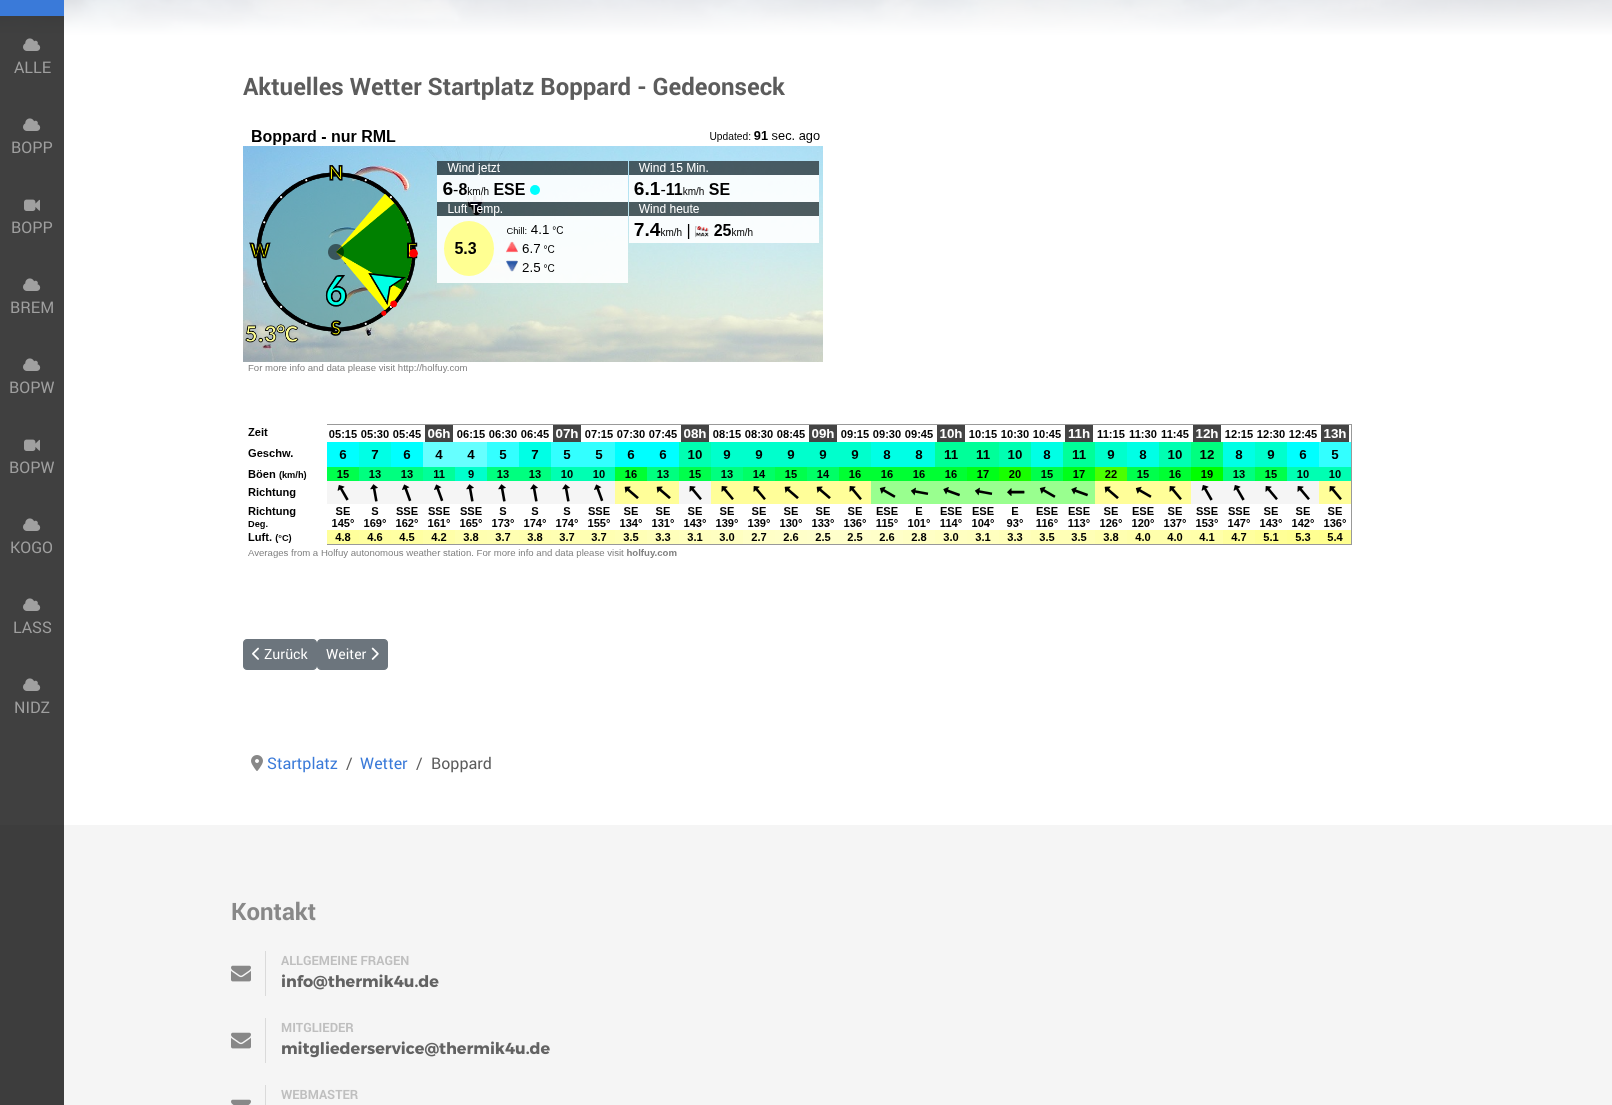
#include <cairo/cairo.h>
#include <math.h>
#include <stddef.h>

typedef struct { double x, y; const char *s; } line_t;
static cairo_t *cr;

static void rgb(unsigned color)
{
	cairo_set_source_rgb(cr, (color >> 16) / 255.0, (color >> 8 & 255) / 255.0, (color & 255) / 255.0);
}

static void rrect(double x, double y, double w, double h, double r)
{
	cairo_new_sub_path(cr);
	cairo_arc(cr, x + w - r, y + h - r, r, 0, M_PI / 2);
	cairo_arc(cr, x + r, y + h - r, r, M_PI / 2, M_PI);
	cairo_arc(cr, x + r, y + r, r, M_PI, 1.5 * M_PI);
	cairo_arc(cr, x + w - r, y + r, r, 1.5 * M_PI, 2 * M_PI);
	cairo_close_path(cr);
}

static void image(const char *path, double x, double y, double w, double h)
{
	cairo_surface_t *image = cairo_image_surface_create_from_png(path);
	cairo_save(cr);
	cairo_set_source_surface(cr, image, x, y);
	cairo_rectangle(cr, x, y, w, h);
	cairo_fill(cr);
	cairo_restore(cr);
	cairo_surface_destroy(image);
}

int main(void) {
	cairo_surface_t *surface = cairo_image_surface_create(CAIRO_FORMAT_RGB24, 1612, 1105);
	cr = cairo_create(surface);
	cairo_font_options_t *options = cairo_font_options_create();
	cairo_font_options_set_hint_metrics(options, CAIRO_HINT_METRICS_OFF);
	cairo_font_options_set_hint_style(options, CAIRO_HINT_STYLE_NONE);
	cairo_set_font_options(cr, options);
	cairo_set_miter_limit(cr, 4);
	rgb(0xffffff);
	cairo_paint(cr);
	image("img/1.png", 0, 0, 1612, 36);
	rgb(0xf5f5f5);
	cairo_rectangle(cr, 0, 825, 1612, 280);
	cairo_fill(cr);
	cairo_set_source_rgba(cr, 0, 0, 0, 0.75);
	cairo_rectangle(cr, 0, 16, 64, 1089);
	cairo_fill(cr);
	rgb(0x3a7ad9);
	cairo_rectangle(cr, 0, 0, 64, 16);
	cairo_fill(cr);
	image("img/2.png", 23, 38, 18, 13);
	image("img/2.png", 23, 118, 18, 13);
	image("img/3.png", 24, 199, 16, 12);
	image("img/2.png", 23, 278, 18, 13);
	image("img/2.png", 23, 358, 18, 13);
	image("img/3.png", 24, 439, 16, 12);
	image("img/2.png", 23, 518, 18, 13);
	image("img/2.png", 23, 598, 18, 13);
	image("img/2.png", 23, 678, 18, 13);
	image("img/4.png", 243, 130, 580, 243);
	image("img/5.png", 248, 424, 1104, 134);
	rgb(0x6c757d);
	rrect(243.5, 639.5, 73, 30, 3.5);
	cairo_fill_preserve(cr);
	cairo_set_line_width(cr, 1);
	cairo_stroke(cr);
	image("img/6.png", 252, 647, 7, 13);
	rrect(317.5, 639.5, 70, 30, 3.5);
	cairo_fill_preserve(cr);
	cairo_stroke(cr);
	image("img/7.png", 371, 647, 8, 13);
	image("img/8.png", 251, 755, 12, 16);
	rgb(0xdadada);
	cairo_rectangle(cr, 265, 951, 1, 45);
	cairo_fill(cr);
	image("img/9.png", 231, 965, 20, 17);
	cairo_rectangle(cr, 265, 1018, 1, 45);
	cairo_fill(cr);
	image("img/9.png", 231, 1032, 20, 17);
	cairo_rectangle(cr, 265, 1085, 1, 20);
	cairo_fill(cr);
	image("img/10.png", 231, 1099, 20, 6);
	cairo_select_font_face(cr, "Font", CAIRO_FONT_SLANT_NORMAL, CAIRO_FONT_WEIGHT_NORMAL);
	cairo_set_font_size(cr, 16);
	rgb(0x9f9f9f);
	{
		static const line_t items[] = {
			{14, 73, "ALLE"},
			{11, 153, "BOPP"},
			{11, 233, "BOPP"},
			{10, 313, "BREM"},
			{9, 393, "BOPW"},
			{9, 473, "BOPW"},
			{10, 553, "KOGO"},
			{13, 633, "LASS"},
			{14, 713, "NIDZ"},
		};
		for (size_t i = 0; i < sizeof items / sizeof *items; i++) {
			cairo_move_to(cr, items[i].x, items[i].y);
			cairo_show_text(cr, items[i].s);
		}
	}
	cairo_select_font_face(cr, "Font", CAIRO_FONT_SLANT_NORMAL, CAIRO_FONT_WEIGHT_BOLD);
	cairo_set_font_size(cr, 24);
	rgb(0x5c5c5c);
	cairo_move_to(cr, 243, 95);
	cairo_show_text(cr, "Aktuelles Wetter Startplatz Boppard - Gedeonseck");
	cairo_select_font_face(cr, "Font", CAIRO_FONT_SLANT_NORMAL, CAIRO_FONT_WEIGHT_NORMAL);
	cairo_set_font_size(cr, 14);
	rgb(0xffffff);
	cairo_move_to(cr, 264, 659);
	cairo_show_text(cr, "Zurück");
	cairo_move_to(cr, 326, 659);
	cairo_show_text(cr, "Weiter");
	cairo_set_font_size(cr, 16);
	rgb(0x3a7ad9);
	cairo_move_to(cr, 267, 769);
	cairo_show_text(cr, "Startplatz");
	rgb(0x5c5c5c);
	cairo_move_to(cr, 346, 769);
	cairo_show_text(cr, "/");
	rgb(0x3a7ad9);
	cairo_move_to(cr, 360, 769);
	cairo_show_text(cr, "Wetter");
	rgb(0x5c5c5c);
	cairo_move_to(cr, 416, 769);
	cairo_show_text(cr, "/");
	cairo_move_to(cr, 431, 769);
	cairo_show_text(cr, "Boppard");
	cairo_select_font_face(cr, "Font", CAIRO_FONT_SLANT_NORMAL, CAIRO_FONT_WEIGHT_BOLD);
	cairo_set_font_size(cr, 24);
	rgb(0x888888);
	cairo_move_to(cr, 231, 920);
	cairo_show_text(cr, "Kontakt");
	cairo_set_font_size(cr, 12.75);
	rgb(0xbfbfbf);
	cairo_move_to(cr, 281, 965);
	cairo_show_text(cr, "ALLGEMEINE FRAGEN");
	cairo_select_font_face(cr, "Montserrat", CAIRO_FONT_SLANT_NORMAL, CAIRO_FONT_WEIGHT_BOLD);
	cairo_set_font_size(cr, 16);
	rgb(0x626262);
	cairo_move_to(cr, 281, 987);
	cairo_show_text(cr, "info@thermik4u.de");
	cairo_select_font_face(cr, "Font", CAIRO_FONT_SLANT_NORMAL, CAIRO_FONT_WEIGHT_BOLD);
	cairo_set_font_size(cr, 12.75);
	rgb(0xbfbfbf);
	cairo_move_to(cr, 281, 1032);
	cairo_show_text(cr, "MITGLIEDER");
	cairo_select_font_face(cr, "Montserrat", CAIRO_FONT_SLANT_NORMAL, CAIRO_FONT_WEIGHT_BOLD);
	cairo_set_font_size(cr, 16);
	rgb(0x626262);
	cairo_move_to(cr, 281, 1054);
	cairo_show_text(cr, "mitgliederservice@thermik4u.de");
	cairo_select_font_face(cr, "Font", CAIRO_FONT_SLANT_NORMAL, CAIRO_FONT_WEIGHT_BOLD);
	cairo_set_font_size(cr, 12.75);
	rgb(0xbfbfbf);
	cairo_move_to(cr, 281, 1099);
	cairo_show_text(cr, "WEBMASTER");
	cairo_surface_write_to_png(surface, "page.png");
	cairo_font_options_destroy(options);
	cairo_destroy(cr);
	cairo_surface_destroy(surface);
	return 0;
}
